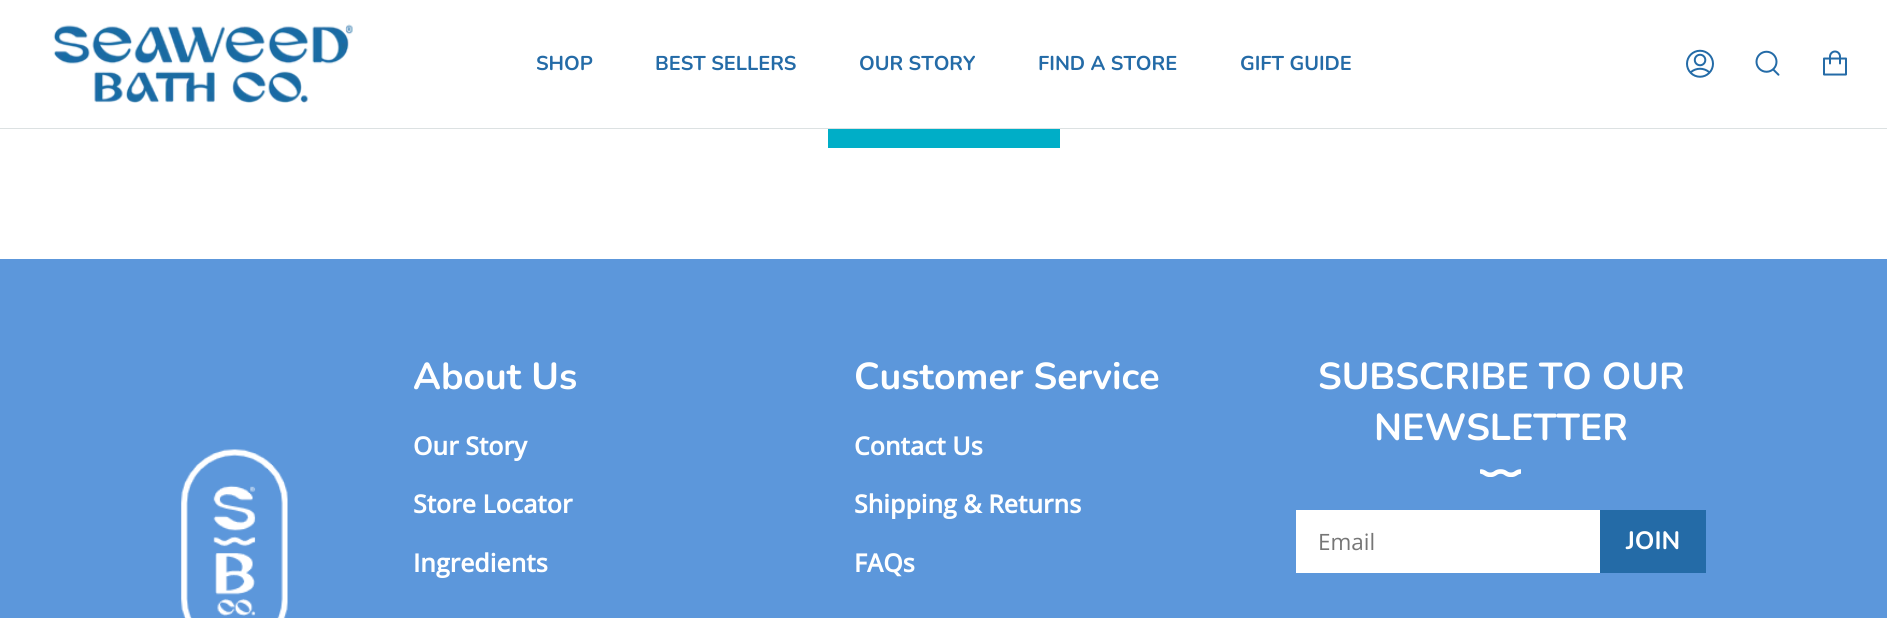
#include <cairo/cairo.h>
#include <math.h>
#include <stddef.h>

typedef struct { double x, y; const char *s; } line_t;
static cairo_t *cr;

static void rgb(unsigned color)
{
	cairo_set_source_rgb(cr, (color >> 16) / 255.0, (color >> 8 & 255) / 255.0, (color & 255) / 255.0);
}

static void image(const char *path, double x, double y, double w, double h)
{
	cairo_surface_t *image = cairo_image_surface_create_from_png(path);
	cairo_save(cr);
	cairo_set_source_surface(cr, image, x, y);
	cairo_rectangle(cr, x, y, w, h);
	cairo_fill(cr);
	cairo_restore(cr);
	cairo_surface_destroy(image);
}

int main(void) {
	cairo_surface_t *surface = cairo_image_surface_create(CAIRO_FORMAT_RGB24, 1887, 618);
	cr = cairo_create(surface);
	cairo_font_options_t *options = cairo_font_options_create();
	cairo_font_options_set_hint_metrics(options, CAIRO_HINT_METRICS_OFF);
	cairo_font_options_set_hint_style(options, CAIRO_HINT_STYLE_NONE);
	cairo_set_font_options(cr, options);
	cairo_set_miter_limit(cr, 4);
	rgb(0xffffff);
	cairo_paint(cr);
	rgb(0xdce1e2);
	cairo_rectangle(cr, 0, 128, 1887, 1);
	cairo_fill(cr);
	image("img/1.png", 53, 24, 300, 79);
	image("img/2.png", 1686, 49, 28, 29);
	image("img/3.png", 1755, 50, 25, 26);
	image("img/4.png", 1823, 50, 24, 26);
	rgb(0x00aec7);
	cairo_rectangle(cr, 828, 129, 232, 19);
	cairo_fill(cr);
	rgb(0x5c97db);
	cairo_rectangle(cr, 0, 259, 1887, 359);
	cairo_fill(cr);
	image("img/5.png", 181, 449, 107, 169);
	image("img/6.png", 1480, 469, 41, 8);
	rgb(0xffffff);
	cairo_rectangle(cr, 1296, 510, 304, 63);
	cairo_fill(cr);
	rgb(0x246ba7);
	cairo_rectangle(cr, 1600, 510, 106, 63);
	cairo_fill(cr);
	cairo_select_font_face(cr, "Nunito", CAIRO_FONT_SLANT_NORMAL, CAIRO_FONT_WEIGHT_BOLD);
	cairo_set_font_size(cr, 20);
	{
		static const line_t items[] = {
			{536, 70, "SHOP"},
			{655, 70, "BEST SELLERS"},
			{859, 70, "OUR STORY"},
			{1038, 70, "FIND A STORE"},
			{1240, 70, "GIFT GUIDE"},
		};
		for (size_t i = 0; i < sizeof items / sizeof *items; i++) {
			cairo_move_to(cr, items[i].x, items[i].y);
			cairo_show_text(cr, items[i].s);
		}
	}
	cairo_set_font_size(cr, 37.5);
	rgb(0xffffff);
	cairo_move_to(cr, 413, 389);
	cairo_show_text(cr, "About Us");
	cairo_select_font_face(cr, "Open Sans", CAIRO_FONT_SLANT_NORMAL, CAIRO_FONT_WEIGHT_BOLD);
	cairo_set_font_size(cr, 25);
	{
		static const line_t items[] = {
			{413, 455, "Our Story"},
			{413, 513, "Store Locator"},
			{413, 572, "Ingredients"},
		};
		for (size_t i = 0; i < sizeof items / sizeof *items; i++) {
			cairo_move_to(cr, items[i].x, items[i].y);
			cairo_show_text(cr, items[i].s);
		}
	}
	cairo_select_font_face(cr, "Nunito", CAIRO_FONT_SLANT_NORMAL, CAIRO_FONT_WEIGHT_BOLD);
	cairo_set_font_size(cr, 37.5);
	cairo_move_to(cr, 854, 389);
	cairo_show_text(cr, "Customer Service");
	cairo_select_font_face(cr, "Open Sans", CAIRO_FONT_SLANT_NORMAL, CAIRO_FONT_WEIGHT_BOLD);
	cairo_set_font_size(cr, 25);
	{
		static const line_t items[] = {
			{854, 455, "Contact Us"},
			{854, 513, "Shipping & Returns"},
			{854, 572, "FAQs"},
		};
		for (size_t i = 0; i < sizeof items / sizeof *items; i++) {
			cairo_move_to(cr, items[i].x, items[i].y);
			cairo_show_text(cr, items[i].s);
		}
	}
	cairo_select_font_face(cr, "Nunito", CAIRO_FONT_SLANT_NORMAL, CAIRO_FONT_WEIGHT_BOLD);
	cairo_set_font_size(cr, 37.5);
	cairo_move_to(cr, 1318, 389);
	cairo_show_text(cr, "SUBSCRIBE TO OUR");
	cairo_move_to(cr, 1374, 440);
	cairo_show_text(cr, "NEWSLETTER");
	cairo_select_font_face(cr, "Open Sans", CAIRO_FONT_SLANT_NORMAL, CAIRO_FONT_WEIGHT_NORMAL);
	cairo_set_font_size(cr, 22.5);
	rgb(0x767676);
	cairo_move_to(cr, 1318, 550);
	cairo_show_text(cr, "Email");
	cairo_select_font_face(cr, "Nunito", CAIRO_FONT_SLANT_NORMAL, CAIRO_FONT_WEIGHT_BOLD);
	cairo_set_font_size(cr, 25);
	rgb(0xffffff);
	cairo_move_to(cr, 1626, 549);
	cairo_show_text(cr, "JOIN");
	cairo_surface_write_to_png(surface, "page.png");
	cairo_font_options_destroy(options);
	cairo_destroy(cr);
	cairo_surface_destroy(surface);
	return 0;
}
